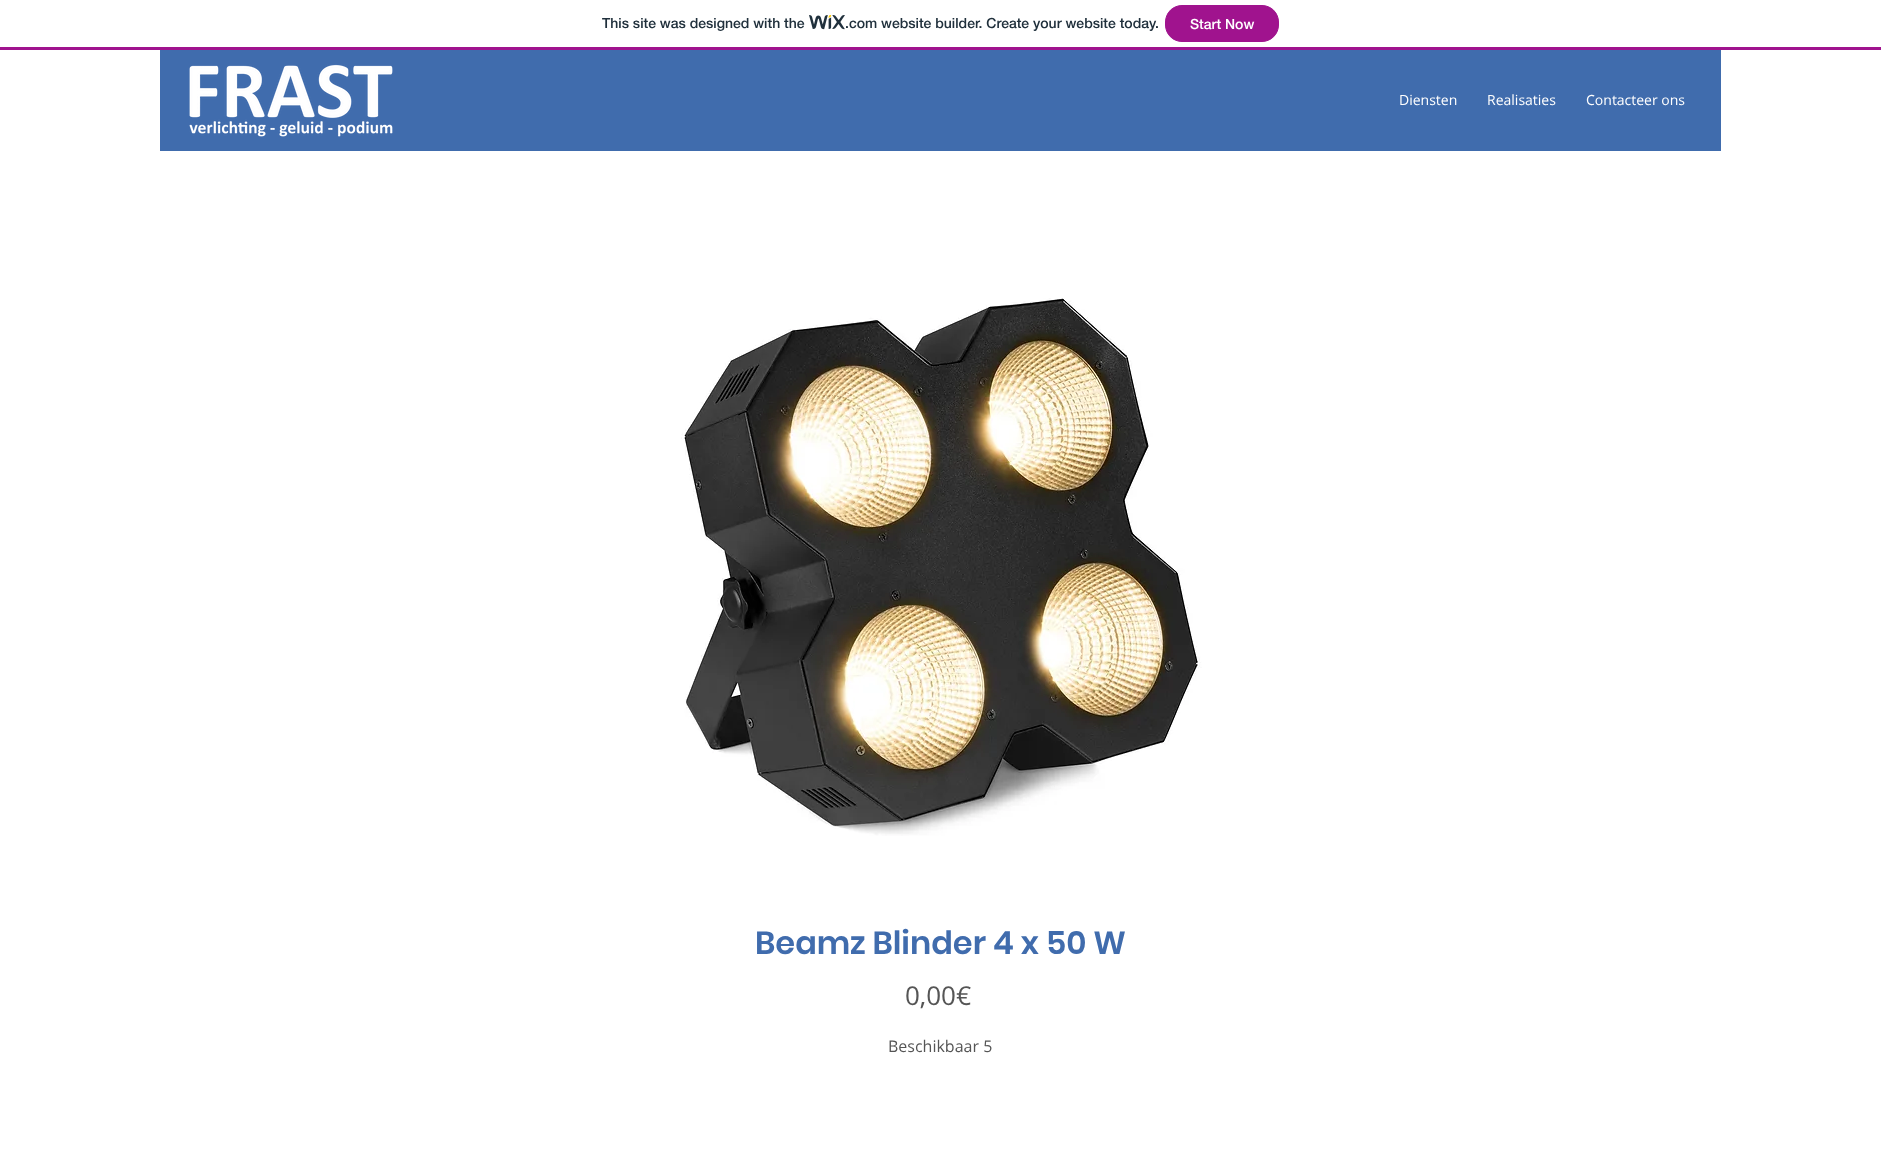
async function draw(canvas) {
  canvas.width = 1881
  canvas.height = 1149
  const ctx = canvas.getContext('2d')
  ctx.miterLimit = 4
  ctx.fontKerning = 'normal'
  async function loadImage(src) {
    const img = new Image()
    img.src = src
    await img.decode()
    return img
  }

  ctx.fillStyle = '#fff'
  ctx.fillRect(0, 0, 1881, 1149)
  ctx.fillStyle = '#a0138e'
  ctx.fillRect(0, 47, 1881, 3)
  ctx.font = '500 14px "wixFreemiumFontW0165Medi"'
  ctx.fillStyle = '#20303c'
  ctx.fillText('This site was designed with the', 602, 28)
  ctx.drawImage(await loadImage('image0.png'), 809, 15, 36, 15)
  ctx.fillText('.com website builder. Create your website today.', 845, 28)
  ctx.fillStyle = '#a0138e'
  ctx.beginPath()
  ctx.roundRect(1165.5, 5.5, 113, 36, 16.5)
  ctx.fill()
  ctx.strokeStyle = '#a0138e'
  ctx.stroke()
  ctx.fillStyle = '#fff'
  ctx.fillText('Start Now', 1190, 29)
  ctx.fillStyle = '#406cad'
  ctx.fillRect(160, 50, 1561, 101)
  ctx.drawImage(await loadImage('image1.png'), 189, 64, 204, 73)
  ctx.font = '14px Open Sans'
  ctx.fillStyle = '#fff'
  ctx.fillText('Diensten', 1399, 105)
  ctx.fillText('Realisaties', 1487, 105)
  ctx.fillText('Contacteer ons', 1586, 105)
  ctx.drawImage(await loadImage('image2.png'), 681, 298, 521, 538)
  ctx.font = '600 32px Poppins'
  ctx.fillStyle = '#406cad'
  ctx.fillText('Beamz Blinder 4 x 50 W', 755, 954)
  ctx.font = '26px Open Sans'
  ctx.fillStyle = '#555'
  ctx.fillText('0,00€', 905, 1005)
  ctx.font = '16px Open Sans'
  ctx.fillText('Beschikbaar 5', 888, 1052)
}

draw(document.querySelector('canvas'))
